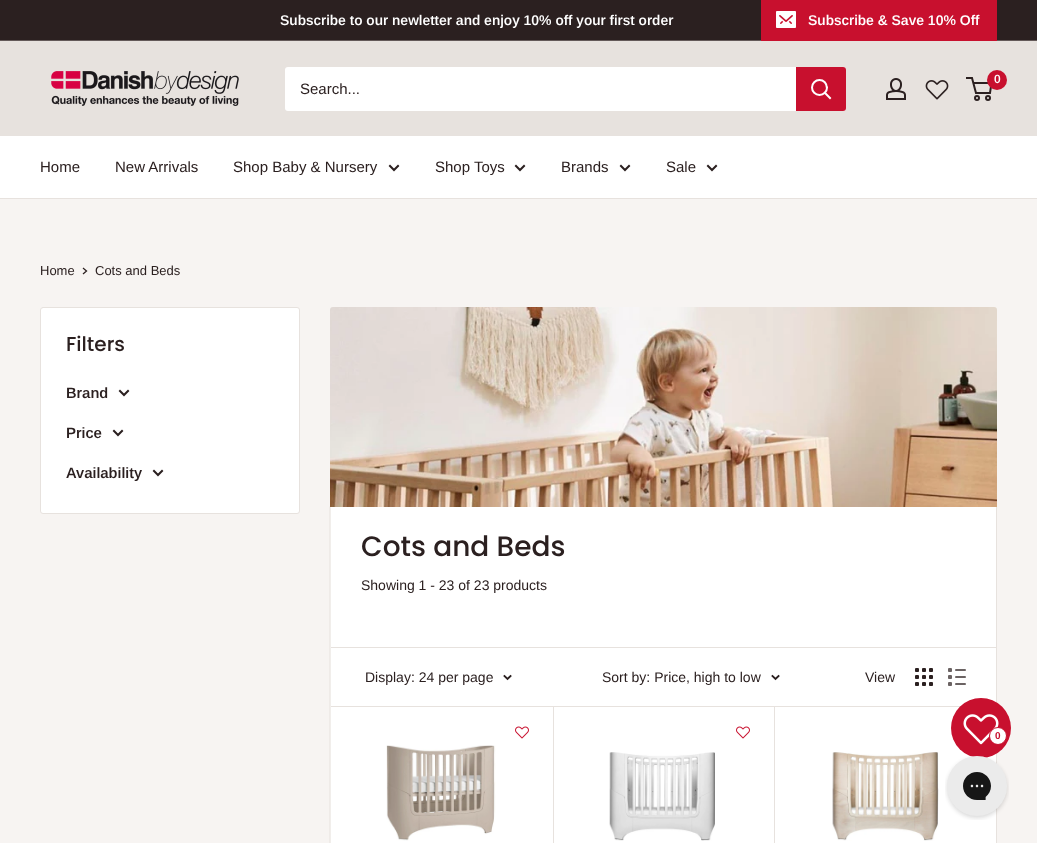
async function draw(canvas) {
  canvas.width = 1037
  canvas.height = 843
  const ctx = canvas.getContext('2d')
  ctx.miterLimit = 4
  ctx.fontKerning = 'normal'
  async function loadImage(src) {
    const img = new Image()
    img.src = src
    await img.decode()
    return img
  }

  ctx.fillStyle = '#f7f4f2'
  ctx.fillRect(0, 0, 1037, 843)
  ctx.fillStyle = '#2b2020'
  ctx.fillRect(0, 0, 1037, 40)
  ctx.fillStyle = '#645a59'
  ctx.fillRect(0, 40, 1037, 1)
  ctx.font = '600 14px Arimo'
  ctx.fillStyle = '#fff'
  ctx.fillText('Subscribe to our newletter and enjoy 10% off your first order', 280, 25)
  ctx.fillStyle = '#c8102e'
  ctx.fillRect(761, 0, 236, 41)
  ctx.drawImage(await loadImage('image0.png'), 776, 11, 20, 17)
  ctx.fillStyle = '#fff'
  ctx.fillText('Subscribe & Save 10% Off', 808, 25)
  ctx.fillStyle = '#e7e2de'
  ctx.fillRect(0, 41, 1037, 95)
  ctx.drawImage(await loadImage('image1.png'), 51, 71, 188, 35)
  ctx.drawImage(await loadImage('image2.png'), 886, 78, 20, 22)
  ctx.drawImage(await loadImage('image3.png'), 925, 80, 24, 20)
  ctx.beginPath()
  ctx.arc(977, 98, 2, 0, 2 * Math.PI)
  ctx.strokeStyle = '#2b2020'
  ctx.lineWidth = 2
  ctx.stroke()
  ctx.beginPath()
  ctx.arc(988, 98, 2, 0, 2 * Math.PI)
  ctx.stroke()
  ctx.beginPath()
  ctx.moveTo(973.5, 83)
  ctx.lineTo(991.5, 83)
  ctx.lineTo(990, 93)
  ctx.lineTo(976, 93)
  ctx.lineTo(972, 78)
  ctx.lineTo(966, 78)
  ctx.stroke()
  ctx.fillStyle = '#c8102e'
  ctx.beginPath()
  ctx.arc(997, 80, 10, 0, 2 * Math.PI)
  ctx.fill()
  ctx.font = '600 12px Arimo'
  ctx.fillStyle = '#fff'
  ctx.fillText('0', 994, 83)
  ctx.beginPath()
  ctx.roundRect(285, 67, 561, 44, 3)
  ctx.fill()
  ctx.font = '15px Arimo'
  ctx.fillStyle = '#2b2020'
  ctx.fillText('Search...', 300, 94)
  ctx.fillStyle = '#c8102e'
  ctx.beginPath()
  ctx.roundRect(796, 67, 50, 44, [0, 3, 3, 0])
  ctx.fill()
  ctx.beginPath()
  ctx.moveTo(830, 98)
  ctx.lineTo(825, 93)
  ctx.strokeStyle = '#fff'
  ctx.lineCap = 'square'
  ctx.stroke()
  ctx.beginPath()
  ctx.arc(819.5, 87.5, 7.5, 0, 2 * Math.PI)
  ctx.stroke()
  ctx.fillStyle = '#fff'
  ctx.fillRect(0, 136, 1037, 62)
  ctx.fillStyle = '#e7e2de'
  ctx.fillRect(0, 198, 1037, 1)
  ctx.fillStyle = '#2b2020'
  ctx.fillText('Home', 40, 172)
  ctx.fillText('New Arrivals', 115, 172)
  ctx.fillText('Shop Baby & Nursery', 233, 172)
  ctx.beginPath()
  ctx.moveTo(398, 166)
  ctx.lineTo(394, 170)
  ctx.lineTo(390, 166)
  ctx.strokeStyle = '#2b2020'
  ctx.stroke()
  ctx.fillText('Shop Toys', 435, 172)
  ctx.beginPath()
  ctx.moveTo(524, 166)
  ctx.lineTo(520, 170)
  ctx.lineTo(516, 166)
  ctx.stroke()
  ctx.fillText('Brands', 561, 172)
  ctx.beginPath()
  ctx.moveTo(629, 166)
  ctx.lineTo(625, 170)
  ctx.lineTo(621, 166)
  ctx.stroke()
  ctx.fillText('Sale', 666, 172)
  ctx.beginPath()
  ctx.moveTo(716, 166)
  ctx.lineTo(712, 170)
  ctx.lineTo(708, 166)
  ctx.stroke()
  ctx.font = '13px Arimo'
  ctx.fillText('Home', 40, 275)
  ctx.beginPath()
  ctx.moveTo(83.5, 268.5)
  ctx.lineTo(86.5, 271)
  ctx.lineTo(83.5, 273.5)
  ctx.lineWidth = 1.3
  ctx.stroke()
  ctx.fillText('Cots and Beds', 95, 275)
  ctx.fillStyle = '#fff'
  ctx.beginPath()
  ctx.roundRect(40.5, 307.5, 259, 206, 2.5)
  ctx.fill()
  ctx.strokeStyle = '#e7e2de'
  ctx.lineWidth = 1
  ctx.stroke()
  ctx.font = '500 20px Poppins'
  ctx.fillStyle = '#2b2020'
  ctx.fillText('Filters', 66, 351)
  ctx.font = '600 15px Arimo'
  ctx.fillText('Brand', 66, 398)
  ctx.beginPath()
  ctx.moveTo(128, 391)
  ctx.lineTo(124, 395)
  ctx.lineTo(120, 391)
  ctx.moveTo(122, 431)
  ctx.lineTo(118, 435)
  ctx.lineTo(114, 431)
  ctx.strokeStyle = '#2b2020'
  ctx.lineWidth = 2
  ctx.stroke()
  ctx.fillText('Price', 66, 438)
  ctx.fillText('Availability', 66, 478)
  ctx.beginPath()
  ctx.moveTo(162, 471)
  ctx.lineTo(158, 475)
  ctx.lineTo(154, 471)
  ctx.stroke()
  ctx.fillStyle = '#fff'
  ctx.beginPath()
  ctx.rect(330.5, 506.5, 666, 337)
  ctx.fill()
  ctx.strokeStyle = '#e7e2de'
  ctx.lineWidth = 1
  ctx.stroke()
  ctx.drawImage(await loadImage('image4.png'), 330, 307, 667, 200)
  ctx.font = '500 28px Poppins'
  ctx.fillStyle = '#2b2020'
  ctx.fillText('Cots and Beds', 361, 556)
  ctx.font = '14px Arimo'
  ctx.fillText('Showing 1 - 23 of 23 products', 361, 590)
  ctx.fillStyle = '#e7e2de'
  ctx.fillRect(331, 647, 665, 1)
  ctx.fillRect(553, 706, 1, 137)
  ctx.fillRect(774, 706, 1, 137)
  ctx.fillRect(331, 706, 630, 1)
  ctx.fillStyle = '#2b2020'
  ctx.fillText('Display: 24 per page', 365, 682)
  ctx.beginPath()
  ctx.moveTo(510.5, 676)
  ctx.lineTo(507.5, 679)
  ctx.lineTo(504.5, 676)
  ctx.strokeStyle = '#2b2020'
  ctx.lineWidth = 1.9
  ctx.stroke()
  ctx.fillText('Sort by: Price, high to low', 602, 682)
  ctx.beginPath()
  ctx.moveTo(778.5, 676)
  ctx.lineTo(775.5, 679)
  ctx.lineTo(772.5, 676)
  ctx.stroke()
  ctx.fillText('View', 865, 682)
  ctx.drawImage(await loadImage('image5.png'), 915, 668, 18, 18)
  ctx.drawImage(await loadImage('image6.png'), 948, 668, 18, 18)
  ctx.drawImage(await loadImage('image7.png'), 515, 726, 14, 13)
  ctx.drawImage(await loadImage('image8.png'), 386, 745, 110, 96)
  ctx.drawImage(await loadImage('image7.png'), 736, 726, 14, 13)
  ctx.drawImage(await loadImage('image9.png'), 609, 752, 106, 89)
  ctx.drawImage(await loadImage('image10.png'), 832, 752, 107, 89)
  ctx.fillStyle = '#c8102e'
  ctx.beginPath()
  ctx.arc(981, 728, 30, 0, 2 * Math.PI)
  ctx.fill()
  ctx.drawImage(await loadImage('image11.png'), 963, 714, 36, 31)
  ctx.fillStyle = '#fff'
  ctx.beginPath()
  ctx.arc(998, 736, 8.5, 0, 2 * Math.PI)
  ctx.fill()
  ctx.strokeStyle = '#c8102e'
  ctx.lineWidth = 1
  ctx.stroke()
  ctx.font = 'bold 10px Liberation Sans'
  ctx.fillStyle = '#c8102e'
  ctx.fillText('0', 995, 739)
  ctx.drawImage(await loadImage('image12.png'), 945, 756, 64, 64)
}

draw(document.querySelector('canvas'))
